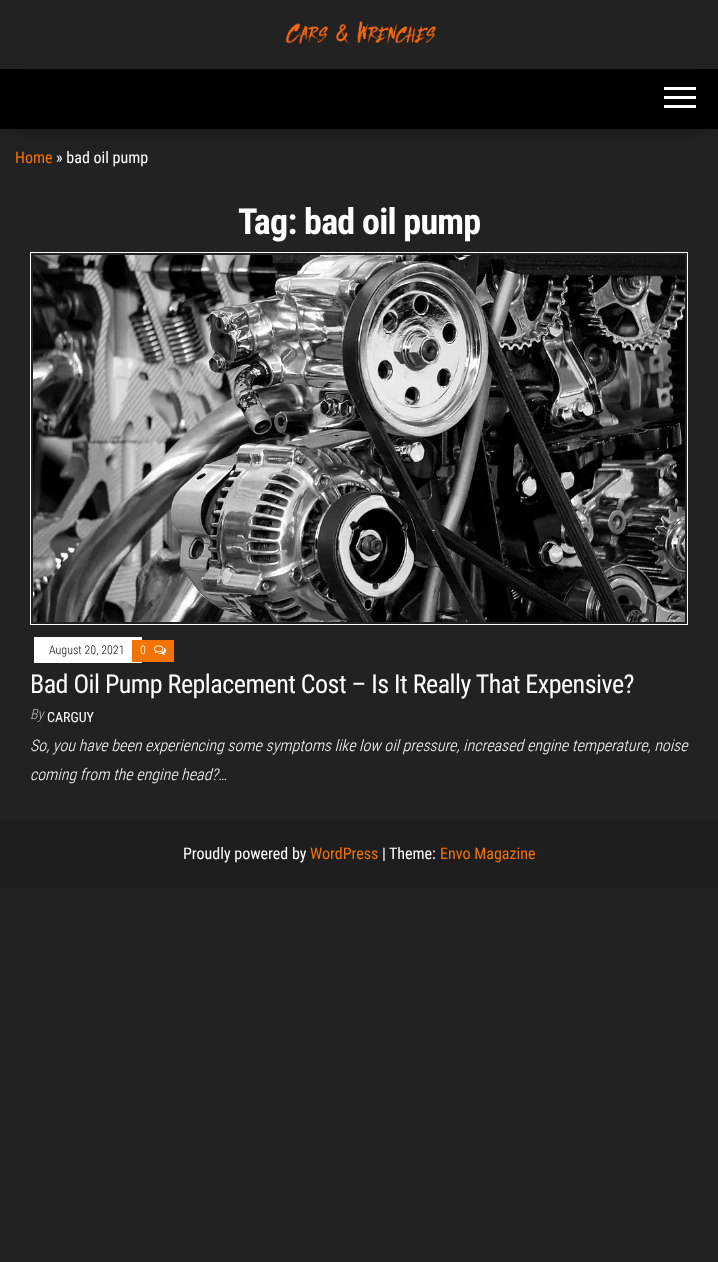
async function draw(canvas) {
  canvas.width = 718
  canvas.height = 1262
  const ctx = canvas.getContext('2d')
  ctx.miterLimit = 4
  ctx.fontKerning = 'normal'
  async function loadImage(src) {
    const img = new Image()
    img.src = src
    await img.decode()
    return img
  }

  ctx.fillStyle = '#222'
  ctx.fillRect(0, 0, 718, 1262)
  ctx.drawImage(await loadImage('image0.png'), 285, 21, 151, 24)
  ctx.fillStyle = '#0000006b'
  ctx.filter = 'blur(10px)'
  ctx.beginPath()
  ctx.rect(12, 91, 694, 36)
  ctx.fill()
  ctx.filter = 'none'
  ctx.fillStyle = '#000'
  ctx.fillRect(0, 69, 718, 60)
  ctx.fillStyle = '#fff'
  ctx.fillRect(664, 87, 32, 3)
  ctx.fillRect(664, 96, 32, 3)
  ctx.fillRect(664, 105, 32, 3)
  ctx.font = '16px Roboto Condensed'
  ctx.fillStyle = '#f27300'
  ctx.fillText('Home', 15, 163)
  ctx.fillStyle = '#fff'
  ctx.fillText('» bad oil pump', 56, 163)
  ctx.letterSpacing = '-0.75px'
  ctx.font = 'bold 36px Roboto Condensed'
  ctx.fillText('Tag: bad oil pump', 238, 234)
  ctx.strokeStyle = '#fff'
  ctx.strokeRect(30.5, 252.5, 657, 372)
  ctx.drawImage(await loadImage('image1.png'), 33, 255, 652, 367)
  ctx.fillRect(34, 637, 108, 26)
  ctx.letterSpacing = '0px'
  ctx.font = '300 12px Roboto Condensed'
  ctx.fillStyle = '#000'
  ctx.fillText('August 20, 2021', 49, 654)
  ctx.fillStyle = '#f27300'
  ctx.fillRect(132, 640, 42, 22)
  ctx.fillStyle = '#fff'
  ctx.fillText('0', 140, 654)
  ctx.drawImage(await loadImage('image2.png'), 154, 645, 12, 10)
  ctx.letterSpacing = '-0.52px'
  ctx.font = '26px Roboto Condensed'
  ctx.fillText('Bad Oil Pump Replacement Cost – Is It Really That Expensive?', 30, 693)
  ctx.letterSpacing = '0px'
  ctx.font = 'italic 300 14px Roboto Condensed'
  ctx.fillStyle = '#bdbdbd'
  ctx.fillText('By', 30, 719)
  ctx.font = '14px Roboto Condensed'
  ctx.fillStyle = '#fff'
  ctx.fillText('CARGUY', 47, 722)
  ctx.font = 'italic 300 16px Roboto Condensed'
  ctx.fillText('So, you have been experiencing some symptoms like low oil pressure, increased engine temperature, noise', 30, 751)
  ctx.fillText('coming from the engine head?…', 30, 780)
  ctx.fillStyle = '#1e1e1e'
  ctx.fillRect(0, 820, 718, 68)
  ctx.font = '16px Roboto Condensed'
  ctx.fillStyle = '#fff'
  ctx.fillText('Proudly powered by', 183, 859)
  ctx.fillStyle = '#f27300'
  ctx.fillText('WordPress', 310, 859)
  ctx.fillStyle = '#fff'
  ctx.fillText('|', 382, 859)
  ctx.fillText('Theme:', 389, 859)
  ctx.fillStyle = '#f27300'
  ctx.fillText('Envo Magazine', 440, 859)
}

draw(document.querySelector('canvas'))
